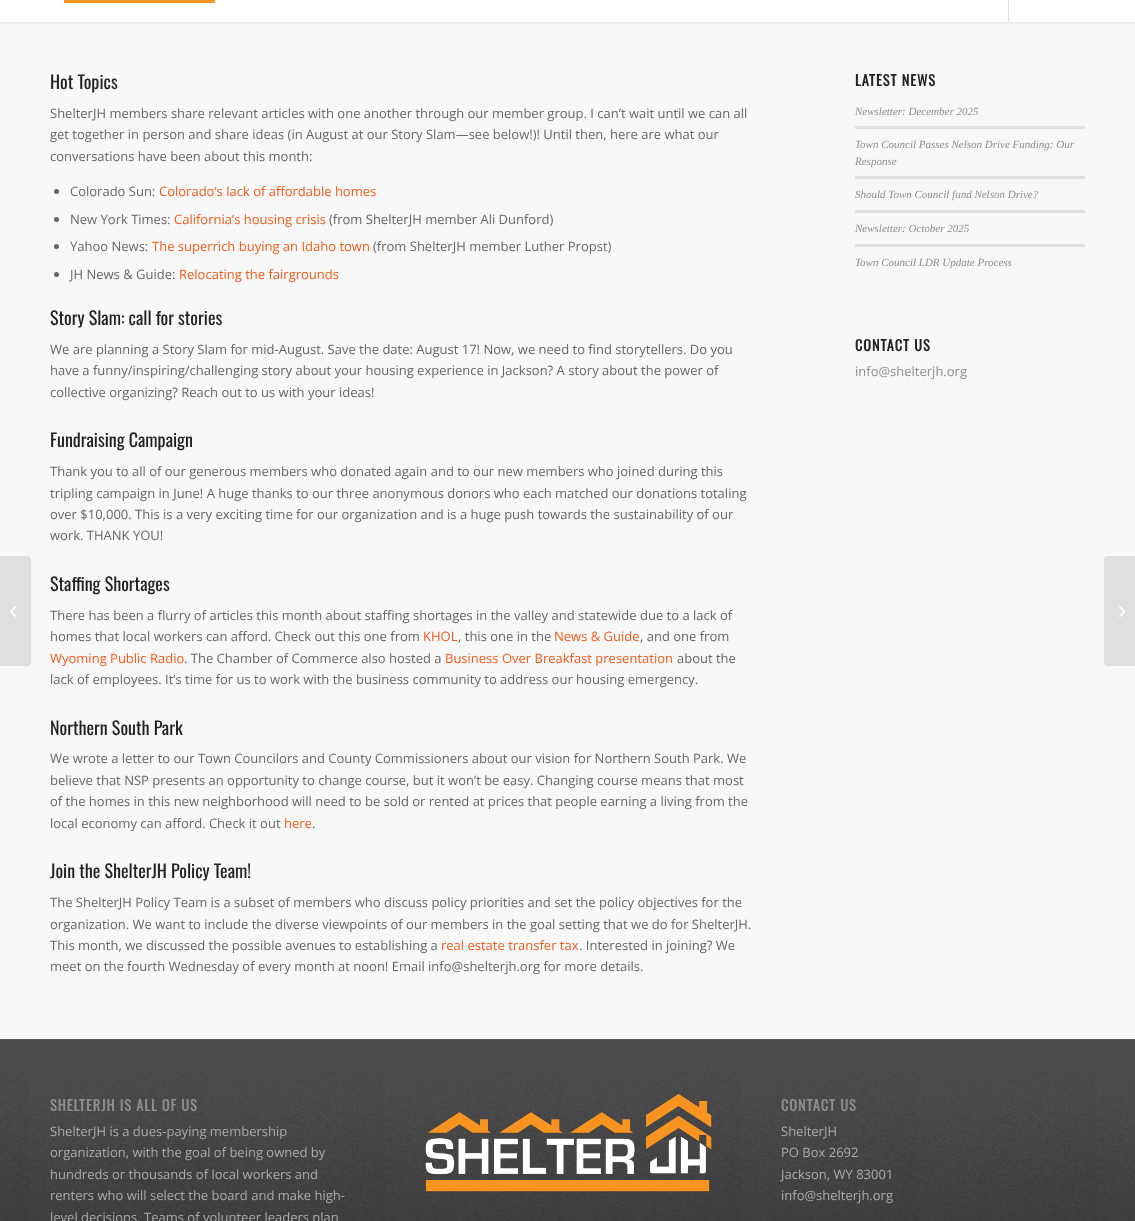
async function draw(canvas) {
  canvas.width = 1135
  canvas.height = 1221
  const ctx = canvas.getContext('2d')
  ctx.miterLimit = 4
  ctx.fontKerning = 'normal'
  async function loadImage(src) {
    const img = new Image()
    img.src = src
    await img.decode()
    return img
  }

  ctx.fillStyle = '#f8f8f8'
  ctx.fillRect(0, 0, 1135, 1221)
  ctx.fillStyle = '#0000001a'
  ctx.filter = 'blur(1px)'
  ctx.beginPath()
  ctx.rect(-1, -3, 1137, 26)
  ctx.fill()
  ctx.filter = 'none'
  ctx.fillStyle = '#fff'
  ctx.fillRect(0, 0, 1135, 22)
  ctx.fillStyle = '#f7931e'
  ctx.fillRect(64, 0, 151, 3)
  ctx.fillStyle = '#e1e1e1'
  ctx.fillRect(1008, 0, 1, 22)
  ctx.fillStyle = '#dfdfdf'
  ctx.beginPath()
  ctx.roundRect(0, 556, 31, 110, [0, 4, 4, 0])
  ctx.fill()
  ctx.drawImage(await loadImage('image0.png'), 10, 606, 7, 11)
  ctx.font = '18px Oswald'
  ctx.fillStyle = '#222'
  ctx.fillText('Hot Topics', 50, 89)
  ctx.font = '13px Open Sans'
  ctx.fillStyle = '#666'
  ctx.fillText('ShelterJH members share relevant articles with one another through our member group. I can’t wait until we can all', 50, 118)
  ctx.fillText('get together in person and share ideas (in August at our Story Slam—see below!)! Until then, here are what our', 50, 139)
  ctx.fillText('conversations have been about this month:', 50, 161)
  ctx.beginPath()
  ctx.arc(56.5, 191.5, 2.5, 0, 2 * Math.PI)
  ctx.fill()
  ctx.fillText('Colorado Sun:', 70, 196)
  ctx.fillStyle = '#f05a1a'
  ctx.fillText('Colorado’s lack of affordable homes', 159, 196)
  ctx.fillStyle = '#666'
  ctx.beginPath()
  ctx.arc(56.5, 219.5, 2.5, 0, 2 * Math.PI)
  ctx.fill()
  ctx.fillText('New York Times:', 70, 224)
  ctx.fillStyle = '#f05a1a'
  ctx.fillText('California’s housing crisis', 174, 224)
  ctx.fillStyle = '#666'
  ctx.fillText('(from ShelterJH member Ali Dunford)', 329, 224)
  ctx.beginPath()
  ctx.arc(56.5, 246.5, 2.5, 0, 2 * Math.PI)
  ctx.fill()
  ctx.fillText('Yahoo News:', 70, 251)
  ctx.fillStyle = '#f05a1a'
  ctx.fillText('The superrich buying an Idaho town', 152, 251)
  ctx.fillStyle = '#666'
  ctx.fillText('(from ShelterJH member Luther Propst)', 373, 251)
  ctx.beginPath()
  ctx.arc(56.5, 274.5, 2.5, 0, 2 * Math.PI)
  ctx.fill()
  ctx.fillText('JH News & Guide:', 70, 279)
  ctx.fillStyle = '#f05a1a'
  ctx.fillText('Relocating the fairgrounds', 179, 279)
  ctx.font = '18px Oswald'
  ctx.fillStyle = '#222'
  ctx.fillText('Story Slam: call for stories', 50, 325)
  ctx.font = '13px Open Sans'
  ctx.fillStyle = '#666'
  ctx.fillText('We are planning a Story Slam for mid-August. Save the date: August 17! Now, we need to find storytellers. Do you', 50, 354)
  ctx.fillText('have a funny/inspiring/challenging story about your housing experience in Jackson? A story about the power of', 50, 375)
  ctx.fillText('collective organizing? Reach out to us with your ideas!', 50, 397)
  ctx.font = '18px Oswald'
  ctx.fillStyle = '#222'
  ctx.fillText('Fundraising Campaign', 50, 447)
  ctx.font = '13px Open Sans'
  ctx.fillStyle = '#666'
  ctx.fillText('Thank you to all of our generous members who donated again and to our new members who joined during this', 50, 476)
  ctx.fillText('tripling campaign in June! A huge thanks to our three anonymous donors who each matched our donations totaling', 50, 498)
  ctx.fillText('over $10,000. This is a very exciting time for our organization and is a huge push towards the sustainability of our', 50, 519)
  ctx.fillText('work. THANK YOU!', 50, 540)
  ctx.font = '18px Oswald'
  ctx.fillStyle = '#222'
  ctx.fillText('Staffing Shortages', 50, 591)
  ctx.font = '13px Open Sans'
  ctx.fillStyle = '#666'
  ctx.fillText('There has been a flurry of articles this month about staffing shortages in the valley and statewide due to a lack of', 50, 620)
  ctx.fillText('homes that local workers can afford. Check out this one from', 50, 641)
  ctx.fillStyle = '#f05a1a'
  ctx.fillText('KHOL', 423, 641)
  ctx.fillStyle = '#666'
  ctx.fillText(', this one in the', 458, 641)
  ctx.fillStyle = '#f05a1a'
  ctx.fillText('News & Guide', 554, 641)
  ctx.fillStyle = '#666'
  ctx.fillText(', and one from', 640, 641)
  ctx.fillStyle = '#f05a1a'
  ctx.fillText('Wyoming Public Radio', 50, 663)
  ctx.fillStyle = '#666'
  ctx.fillText('. The Chamber of Commerce also hosted a', 184, 663)
  ctx.fillStyle = '#f05a1a'
  ctx.fillText('Business Over Breakfast presentation', 445, 663)
  ctx.fillStyle = '#666'
  ctx.fillText('about the', 677, 663)
  ctx.fillText('lack of employees. It’s time for us to work with the business community to address our housing emergency.', 50, 684)
  ctx.font = '18px Oswald'
  ctx.fillStyle = '#222'
  ctx.fillText('Northern South Park', 50, 735)
  ctx.font = '13px Open Sans'
  ctx.fillStyle = '#666'
  ctx.fillText('We wrote a letter to our Town Councilors and County Commissioners about our vision for Northern South Park. We', 50, 763)
  ctx.fillText('believe that NSP presents an opportunity to change course, but it won’t be easy. Changing course means that most', 50, 785)
  ctx.fillText('of the homes in this new neighborhood will need to be sold or rented at prices that people earning a living from the', 50, 806)
  ctx.fillText('local economy can afford. Check it out', 50, 828)
  ctx.fillStyle = '#f05a1a'
  ctx.fillText('here', 284, 828)
  ctx.fillStyle = '#666'
  ctx.fillText('.', 312, 828)
  ctx.font = '18px Oswald'
  ctx.fillStyle = '#222'
  ctx.fillText('Join the ShelterJH Policy Team!', 50, 878)
  ctx.font = '13px Open Sans'
  ctx.fillStyle = '#666'
  ctx.fillText('The ShelterJH Policy Team is a subset of members who discuss policy priorities and set the policy objectives for the', 50, 907)
  ctx.fillText('organization. We want to include the diverse viewpoints of our members in the goal setting that we do for ShelterJH.', 50, 929)
  ctx.fillText('This month, we discussed the possible avenues to establishing a', 50, 950)
  ctx.fillStyle = '#f05a1a'
  ctx.fillText('real estate transfer tax', 441, 950)
  ctx.fillStyle = '#666'
  ctx.fillText('. Interested in joining? We', 579, 950)
  ctx.fillText('meet on the fourth Wednesday of every month at noon! Email info@shelterjh.org for more details.', 50, 971)
  ctx.letterSpacing = '1px'
  ctx.font = 'bold 14.25px Oswald'
  ctx.fillStyle = '#222'
  ctx.fillText('LATEST NEWS', 855, 86)
  ctx.letterSpacing = '0px'
  ctx.font = 'italic 11px Liberation Serif'
  ctx.fillStyle = '#8d8d8d'
  ctx.fillText('Newsletter: December 2025', 855, 115)
  ctx.fillStyle = '#e1e1e1'
  ctx.fillRect(855, 126, 230, 3)
  ctx.fillStyle = '#8d8d8d'
  ctx.fillText('Town Council Passes Nelson Drive Funding: Our', 855, 148)
  ctx.fillText('Response', 855, 165)
  ctx.fillStyle = '#e1e1e1'
  ctx.fillRect(855, 176, 230, 3)
  ctx.fillStyle = '#8d8d8d'
  ctx.fillText('Should Town Council fund Nelson Drive?', 855, 198)
  ctx.fillStyle = '#e1e1e1'
  ctx.fillRect(855, 210, 230, 3)
  ctx.fillStyle = '#8d8d8d'
  ctx.fillText('Newsletter: October 2025', 855, 232)
  ctx.fillStyle = '#e1e1e1'
  ctx.fillRect(855, 244, 230, 3)
  ctx.fillStyle = '#8d8d8d'
  ctx.fillText('Town Council LDR Update Process', 855, 266)
  ctx.letterSpacing = '1px'
  ctx.font = 'bold 14.25px Oswald'
  ctx.fillStyle = '#222'
  ctx.fillText('CONTACT US', 855, 351)
  ctx.letterSpacing = '0px'
  ctx.font = '13px Open Sans'
  ctx.fillStyle = '#8d8d8d'
  ctx.fillText('info@shelterjh.org', 855, 376)
  ctx.fillStyle = '#333'
  ctx.fillRect(0, 1040, 1135, 181)
  ctx.drawImage(await loadImage('image1.png'), 0, 1040, 1135, 181)
  ctx.fillStyle = '#555'
  ctx.fillRect(0, 1039, 1135, 1)
  ctx.letterSpacing = '1px'
  ctx.font = 'bold 14.25px Oswald'
  ctx.fillStyle = '#8d8d8d'
  ctx.fillText('SHELTERJH IS ALL OF US', 50, 1111)
  ctx.letterSpacing = '0px'
  ctx.font = '13px Open Sans'
  ctx.fillStyle = '#aaa'
  ctx.fillText('ShelterJH is a dues-paying membership', 50, 1136)
  ctx.fillText('organization, with the goal of being owned by', 50, 1157)
  ctx.fillText('hundreds or thousands of local workers and', 50, 1179)
  ctx.fillText('renters who will select the board and make high-', 50, 1200)
  ctx.fillText('level decisions. Teams of volunteer leaders plan', 50, 1222)
  ctx.drawImage(await loadImage('image2.png'), 425, 1093, 287, 99)
  ctx.letterSpacing = '1px'
  ctx.font = 'bold 14.25px Oswald'
  ctx.fillStyle = '#8d8d8d'
  ctx.fillText('CONTACT US', 781, 1111)
  ctx.letterSpacing = '0px'
  ctx.font = '13px Open Sans'
  ctx.fillStyle = '#aaa'
  ctx.fillText('ShelterJH', 781, 1136)
  ctx.fillText('PO Box 2692', 781, 1157)
  ctx.fillText('Jackson, WY 83001', 781, 1179)
  ctx.fillText('info@shelterjh.org', 781, 1200)
  ctx.fillStyle = '#dfdfdf'
  ctx.beginPath()
  ctx.roundRect(1104, 556, 31, 110, [4, 0, 0, 4])
  ctx.fill()
  ctx.drawImage(await loadImage('image3.png'), 1119, 606, 7, 11)
}

draw(document.querySelector('canvas'))
